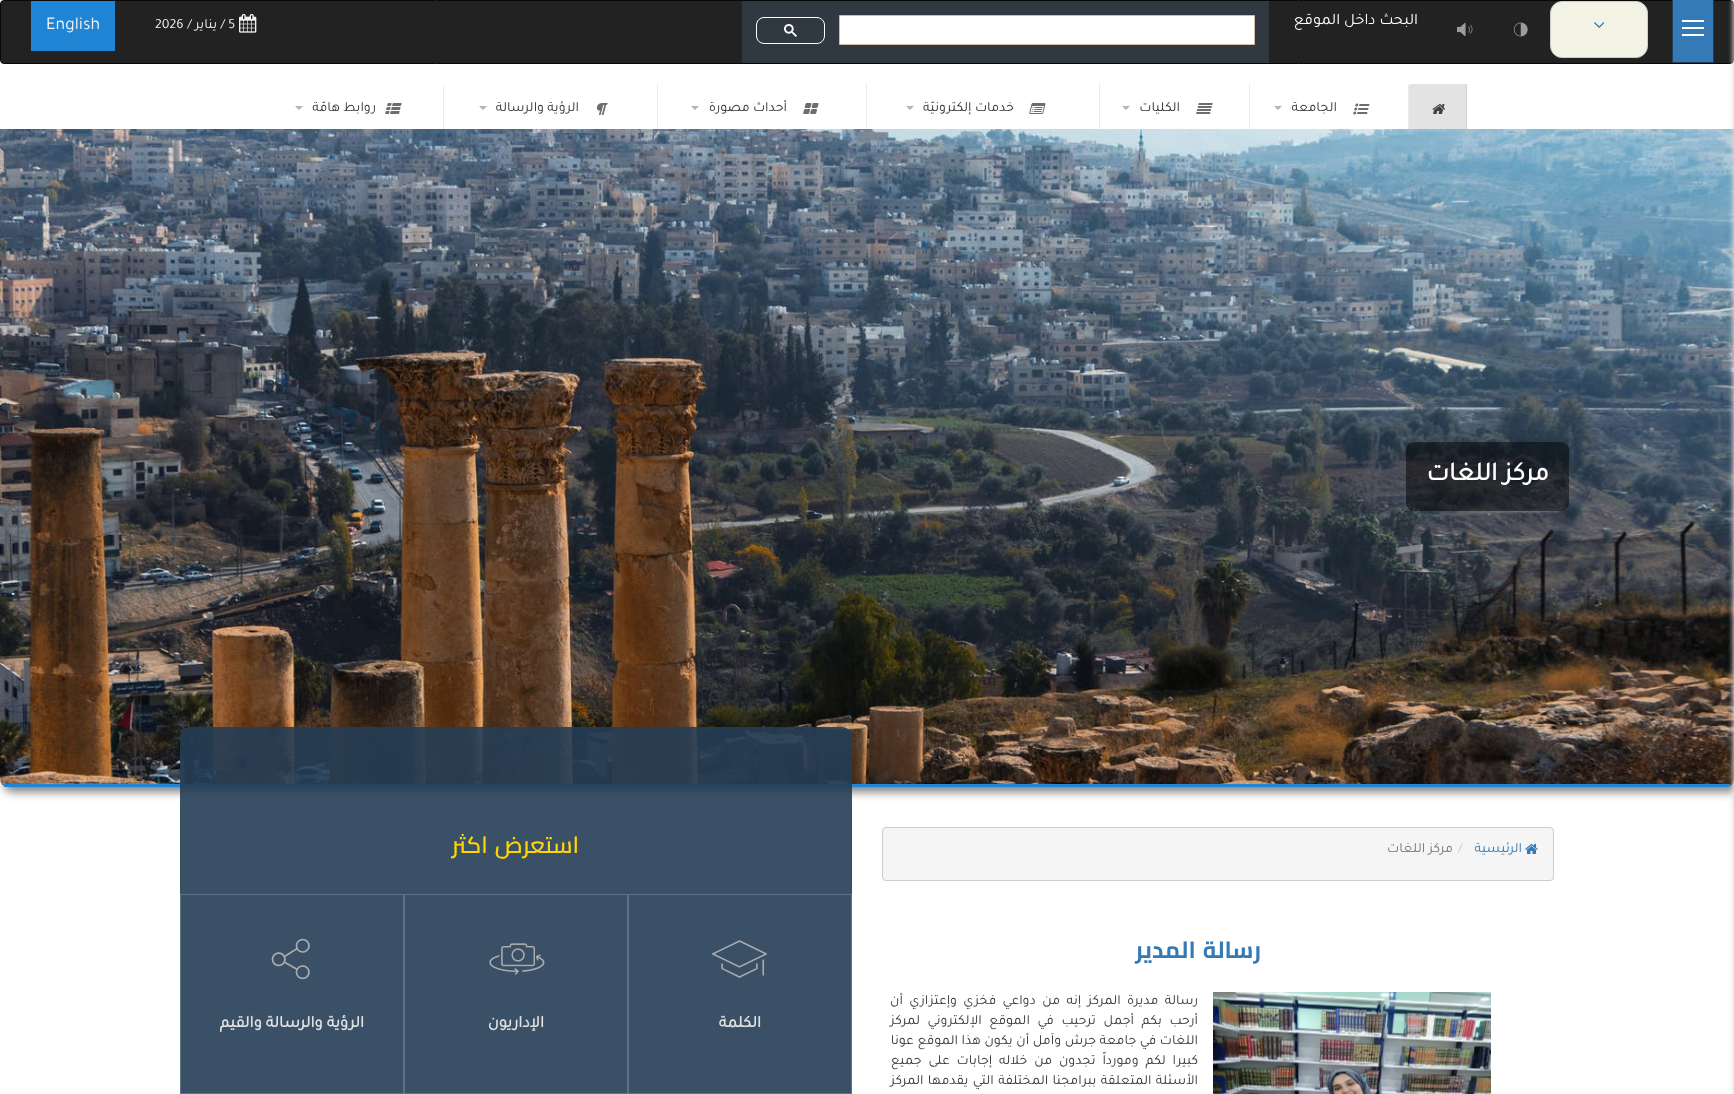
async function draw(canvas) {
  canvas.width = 1734
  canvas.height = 1094
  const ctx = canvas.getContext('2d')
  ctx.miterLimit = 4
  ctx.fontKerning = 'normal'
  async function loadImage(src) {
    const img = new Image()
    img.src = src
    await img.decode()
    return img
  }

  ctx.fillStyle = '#fff'
  ctx.fillRect(0, 0, 1734, 1094)
  ctx.fillStyle = '#222'
  ctx.beginPath()
  ctx.roundRect(0.5, 0.5, 1733, 63, 3.5)
  ctx.fill()
  ctx.strokeStyle = '#080808'
  ctx.stroke()
  ctx.fillStyle = '#e3e3e3'
  ctx.beginPath()
  ctx.roundRect(1409, 84, 58, 50, [3, 0, 0, 0])
  ctx.fill()
  ctx.fillStyle = '#d1d1d1'
  ctx.fillRect(1466, 84, 1, 50)
  ctx.fillStyle = '#ebebeb'
  ctx.fillRect(1408, 84, 1, 50)
  ctx.fillRect(1249, 84, 1, 50)
  ctx.fillRect(1099, 84, 1, 50)
  ctx.fillRect(866, 84, 1, 50)
  ctx.fillRect(657, 84, 1, 50)
  ctx.fillRect(443, 86, 1, 48)
  ctx.drawImage(await loadImage('image5.png'), 1432, 104, 13, 10)
  ctx.drawImage(await loadImage('image6.png'), 1353, 103, 17, 12)
  ctx.fillStyle = '#b3b3b3'
  ctx.beginPath()
  ctx.moveTo(1274, 106)
  ctx.lineTo(1282, 106)
  ctx.lineTo(1278, 110)
  ctx.closePath()
  ctx.fill()
  ctx.drawImage(await loadImage('image7.png'), 1196, 103, 17, 11)
  ctx.beginPath()
  ctx.moveTo(1122, 106)
  ctx.lineTo(1130, 106)
  ctx.lineTo(1126, 110)
  ctx.closePath()
  ctx.fill()
  ctx.drawImage(await loadImage('image8.png'), 1029, 103, 17, 11)
  ctx.beginPath()
  ctx.moveTo(906, 106)
  ctx.lineTo(914, 106)
  ctx.lineTo(910, 110)
  ctx.closePath()
  ctx.fill()
  ctx.drawImage(await loadImage('image9.png'), 803, 103, 16, 11)
  ctx.beginPath()
  ctx.moveTo(691, 106)
  ctx.lineTo(699, 106)
  ctx.lineTo(695, 110)
  ctx.closePath()
  ctx.fill()
  ctx.drawImage(await loadImage('image10.png'), 596, 103, 12, 12)
  ctx.beginPath()
  ctx.moveTo(479, 106)
  ctx.lineTo(487, 106)
  ctx.lineTo(483, 110)
  ctx.closePath()
  ctx.fill()
  ctx.drawImage(await loadImage('image11.png'), 385, 103, 17, 11)
  ctx.beginPath()
  ctx.moveTo(295, 106)
  ctx.lineTo(303, 106)
  ctx.lineTo(299, 110)
  ctx.closePath()
  ctx.fill()
  ctx.save()
  ctx.beginPath()
  ctx.rect(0, 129, 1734, 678)
  ctx.clip()
  ctx.fillStyle = '#808080'
  ctx.filter = 'blur(5px)'
  ctx.beginPath()
  ctx.roundRect(4, 114, 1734, 678, 8)
  ctx.fill()
  ctx.filter = 'none'
  ctx.restore()
  ctx.drawImage(await loadImage('image12.png'), 0, 129, 1734, 657)
  ctx.fillStyle = '#2185d5'
  ctx.fillRect(4, 784, 1726, 3)
  ctx.fillStyle = '#ddd'
  ctx.filter = 'blur(2.5px)'
  ctx.beginPath()
  ctx.rect(1733, -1, 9, 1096)
  ctx.fill()
  ctx.filter = 'none'
  ctx.fillStyle = '#337ab7'
  ctx.beginPath()
  ctx.rect(1672.5, -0.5, 41, 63)
  ctx.fill()
  ctx.strokeStyle = '#253d55'
  ctx.stroke()
  ctx.fillStyle = '#fff'
  ctx.fillRect(1682, 27, 22, 2)
  ctx.fillRect(1682, 20, 22, 2)
  ctx.fillRect(1682, 34, 22, 2)
  ctx.fillStyle = '#f3f3e5'
  ctx.beginPath()
  ctx.roundRect(1550.5, 1.5, 97, 56, 11.5)
  ctx.fill()
  ctx.strokeStyle = '#ccc'
  ctx.stroke()
  ctx.drawImage(await loadImage('image0.png'), 1594, 22, 11, 6)
  ctx.drawImage(await loadImage('image1.png'), 1513, 22, 15, 15)
  ctx.drawImage(await loadImage('image2.png'), 1457, 23, 16, 13)
  ctx.direction = 'rtl'
  ctx.font = '16px Tajawal'
  ctx.fillStyle = '#fff'
  ctx.fillText('البحث داخل الموقع', 1418, 24)
  ctx.fillStyle = '#303841'
  ctx.fillRect(742, 1, 527, 62)
  ctx.fillStyle = '#fff'
  ctx.beginPath()
  ctx.rect(839.5, 15.5, 415, 29)
  ctx.fill()
  ctx.strokeStyle = '#d3bca1'
  ctx.stroke()
  ctx.beginPath()
  ctx.roundRect(756.5, 17.5, 68, 26, 7.5)
  ctx.strokeStyle = '#fff'
  ctx.stroke()
  ctx.drawImage(await loadImage('image3.png'), 784, 24, 13, 13)
  ctx.drawImage(await loadImage('image4.png'), 239, 14, 18, 19)
  ctx.direction = 'ltr'
  ctx.font = '14px Tajawal'
  ctx.fillStyle = '#f3f3f3'
  ctx.fillText('5', 228, 28)
  ctx.direction = 'rtl'
  ctx.fillText('/ يناير /', 225, 28)
  ctx.direction = 'ltr'
  ctx.fillText('2026', 155, 28)
  ctx.fillStyle = '#2185d5'
  ctx.fillRect(31, 1, 84, 50)
  ctx.font = '18px Tajawal'
  ctx.fillStyle = '#f3f3f3'
  ctx.fillText('English', 46, 29)
  ctx.direction = 'rtl'
  ctx.font = '14px Tajawal'
  ctx.fillStyle = '#333'
  ctx.fillText('الجامعة', 1337, 111)
  ctx.fillText('الكليات', 1180, 111)
  ctx.fillText('خدمات إلكترونيّة', 1014, 111)
  ctx.fillText('أحداث مصورة', 787, 111)
  ctx.fillText('الرؤية والرسالة', 579, 111)
  ctx.fillText('روابط هامّة', 376, 111)
  ctx.fillStyle = '#02020280'
  ctx.beginPath()
  ctx.roundRect(1406, 442, 163, 69, 8)
  ctx.fill()
  ctx.font = 'bold 26px Tajawal'
  ctx.fillStyle = '#fff'
  ctx.fillText('مركز اللغات', 1549, 480)
  ctx.fillStyle = '#f5f5f5'
  ctx.beginPath()
  ctx.roundRect(882.5, 827.5, 671, 53, 3.5)
  ctx.fill()
  ctx.strokeStyle = '#ccc'
  ctx.stroke()
  ctx.drawImage(await loadImage('image13.png'), 1525, 844, 13, 10)
  ctx.font = '14px Tajawal'
  ctx.fillStyle = '#337ab7'
  ctx.fillText('الرئيسية', 1522, 852)
  ctx.direction = 'ltr'
  ctx.fillStyle = '#ccc'
  ctx.fillText('/', 1458, 852)
  ctx.direction = 'rtl'
  ctx.fillStyle = '#777'
  ctx.fillText('مركز اللغات', 1453, 852)
  ctx.wordSpacing = '2px'
  ctx.font = 'bold 23.25px Cairo'
  ctx.fillStyle = '#337ab7'
  ctx.fillText('رسالة المدير', 1261, 958)
  ctx.drawImage(await loadImage('image14.png'), 1213, 992, 278, 102)
  ctx.wordSpacing = '3px'
  ctx.font = '14px Tajawal'
  ctx.fillStyle = '#393838'
  ctx.fillText('رسالة مديرة المركز إنه من دواعي فخزي وإعتزازي أن', 1198, 1004)
  ctx.wordSpacing = '4.25px'
  ctx.fillText('أرحب بكم أجمل ترحيب في الموقع الإلكتروني لمركز', 1198, 1024)
  ctx.wordSpacing = '0.25px'
  ctx.fillText('اللغات في جامعة جرش وآمل أن يكون هذا الموقع عونا', 1198, 1044)
  ctx.wordSpacing = '3.5px'
  ctx.fillText('كبيرا لكم ومورداً تجدون من خلاله إجابات على جميع', 1198, 1064)
  ctx.wordSpacing = '1px'
  ctx.fillText('الأسئلة المتعلقة ببرامجنا المختلفة التي يقدمها المركز', 1198, 1084)
  ctx.fillStyle = '#253d55e6'
  ctx.beginPath()
  ctx.roundRect(180, 727, 672, 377, 10)
  ctx.fill()
  ctx.wordSpacing = '2px'
  ctx.font = '600 23.25px Cairo'
  ctx.fillStyle = '#ffd700'
  ctx.fillText('استعرض اكثر', 579, 853)
  ctx.strokeStyle = '#5b7289'
  ctx.strokeRect(628.5, 894.5, 223, 199)
  ctx.drawImage(await loadImage('image15.png'), 712, 940, 55, 38)
  ctx.wordSpacing = '0px'
  ctx.font = 'bold 16.5px Tajawal'
  ctx.fillStyle = '#e1e1e1'
  ctx.fillText('الكلمة', 761, 1027)
  ctx.strokeRect(404.5, 894.5, 223, 199)
  ctx.drawImage(await loadImage('image16.png'), 489, 943, 56, 32)
  ctx.fillText('الإداريون', 544, 1027)
  ctx.strokeRect(180.5, 894.5, 223, 199)
  ctx.drawImage(await loadImage('image17.png'), 271, 938, 39, 42)
  ctx.fillText('الرؤية والرسالة والقيم', 364, 1027)
}

draw(document.querySelector('canvas'))
